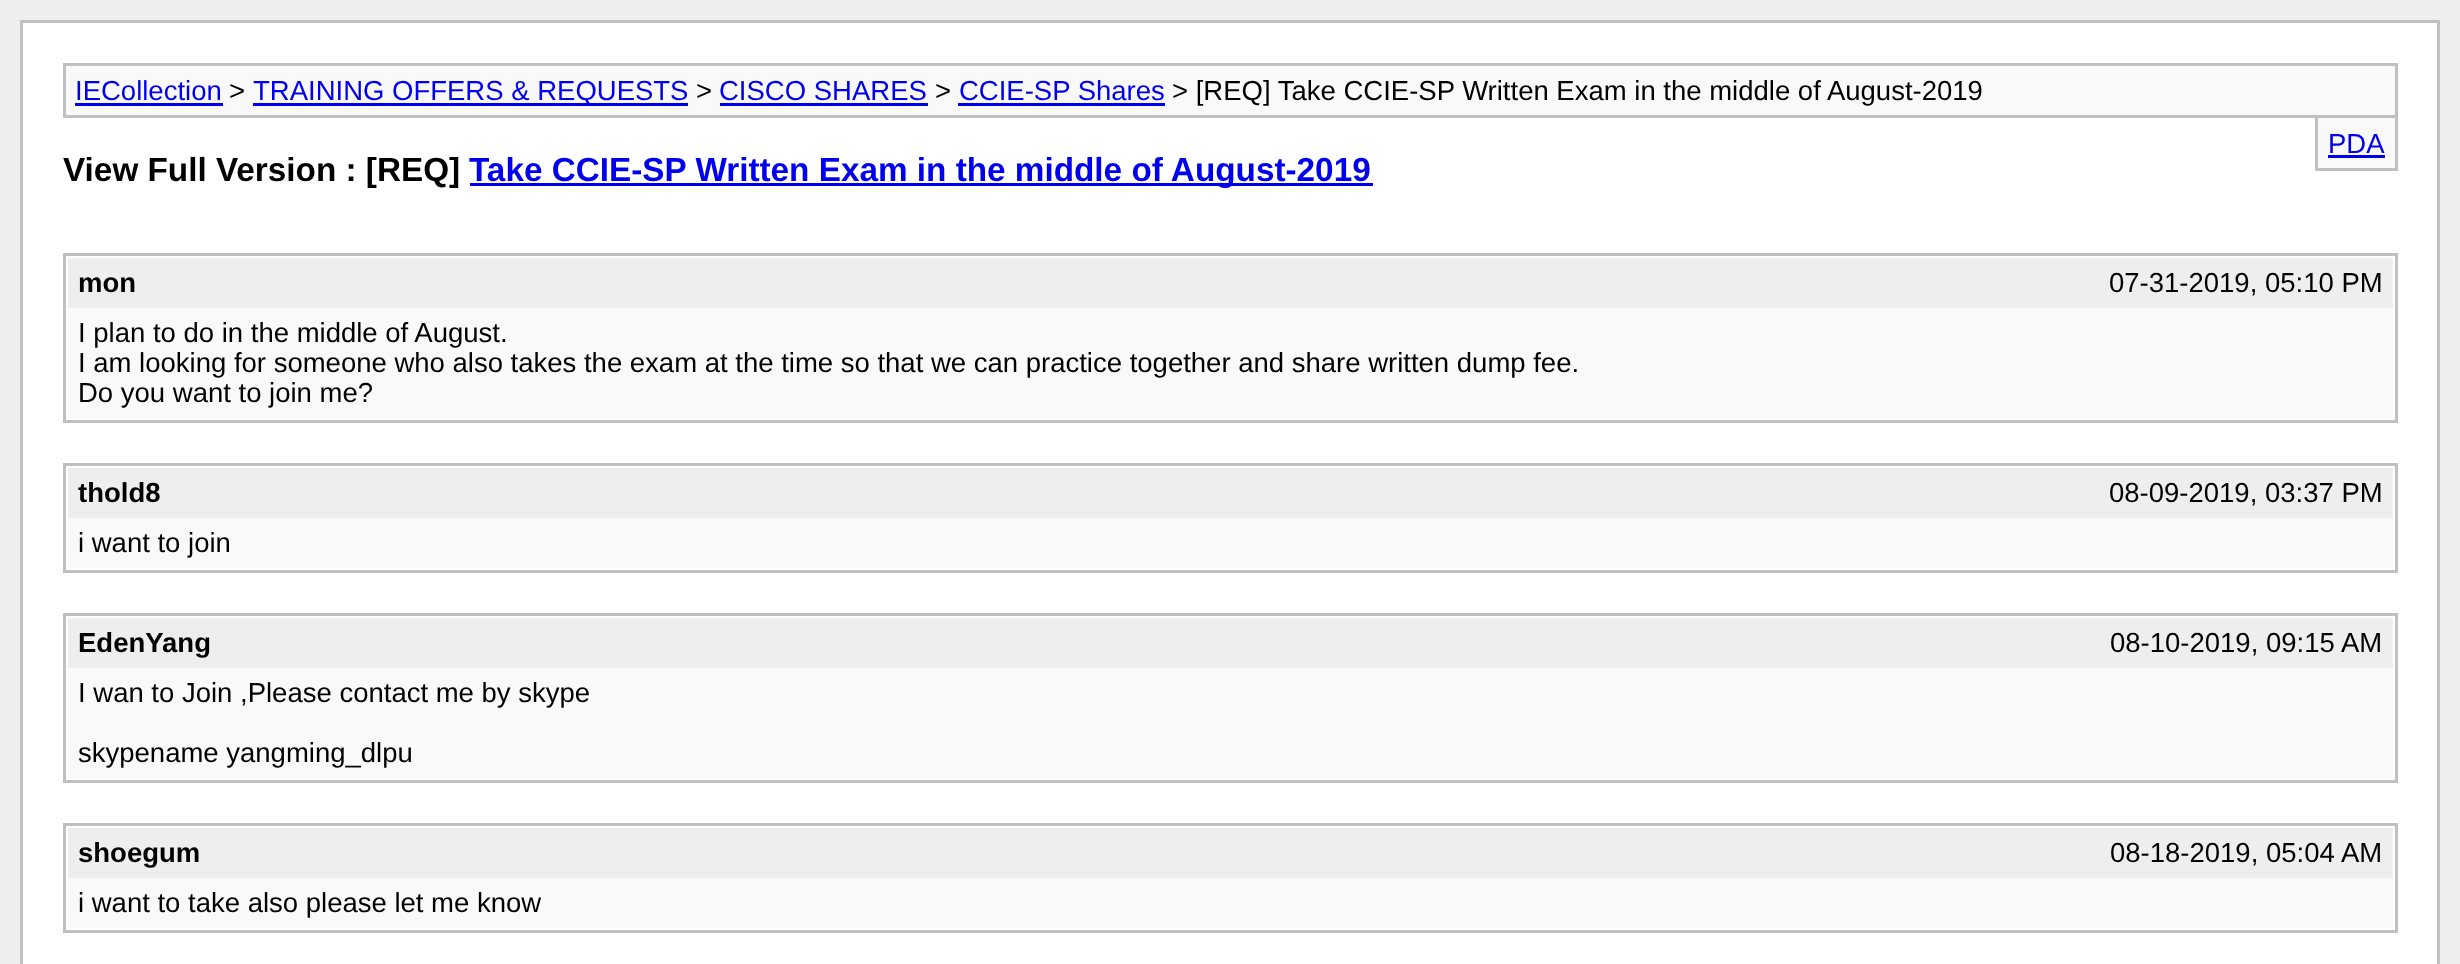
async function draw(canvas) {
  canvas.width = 2460
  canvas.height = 964
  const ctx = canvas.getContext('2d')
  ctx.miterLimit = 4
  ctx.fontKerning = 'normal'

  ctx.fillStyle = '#eee'
  ctx.fillRect(0, 0, 2460, 964)
  ctx.fillStyle = '#fff'
  ctx.beginPath()
  ctx.rect(21.5, 21.5, 2417, 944)
  ctx.fill()
  ctx.strokeStyle = '#c0c0c0'
  ctx.lineWidth = 3
  ctx.stroke()
  ctx.fillStyle = '#f9f9f9'
  ctx.beginPath()
  ctx.rect(64.5, 64.5, 2332, 52)
  ctx.fill()
  ctx.stroke()
  ctx.font = '27.5px Liberation Sans'
  ctx.fillStyle = '#00e'
  ctx.fillText('IECollection', 75, 100)
  ctx.fillRect(75, 103, 148, 3)
  ctx.fillStyle = '#000'
  ctx.fillText('>', 229, 100)
  ctx.fillStyle = '#00e'
  ctx.fillRect(253, 103, 435, 3)
  ctx.fillText('TRAINING OFFERS & REQUESTS', 253, 100)
  ctx.fillStyle = '#000'
  ctx.fillText('>', 696, 100)
  ctx.fillStyle = '#00e'
  ctx.fillText('CISCO SHARES', 719, 100)
  ctx.fillRect(720, 103, 208, 3)
  ctx.fillStyle = '#000'
  ctx.fillText('>', 935, 100)
  ctx.fillStyle = '#00e'
  ctx.fillText('CCIE-SP Shares', 959, 100)
  ctx.fillRect(958, 103, 207, 3)
  ctx.fillStyle = '#000'
  ctx.fillText('> [REQ] Take CCIE-SP Written Exam in the middle of August-2019', 1172, 100)
  ctx.fillStyle = '#f9f9f9'
  ctx.fillRect(2318, 118, 77, 50)
  ctx.fillStyle = '#c0c0c0'
  ctx.fillRect(2395, 118, 3, 52)
  ctx.fillRect(2315, 168, 83, 3)
  ctx.fillRect(2315, 118, 3, 52)
  ctx.fillStyle = '#00e'
  ctx.fillText('PDA', 2328, 153)
  ctx.fillRect(2328, 155, 57, 3)
  ctx.font = 'bold 33.3px Liberation Sans'
  ctx.fillStyle = '#000'
  ctx.fillText('View Full Version : [REQ]', 63, 181)
  ctx.fillStyle = '#00e'
  ctx.fillRect(470, 183, 903, 3)
  ctx.fillText('Take CCIE-SP Written Exam in the middle of August-2019', 469, 181)
  ctx.strokeRect(64.5, 254.5, 2332, 167)
  ctx.fillStyle = '#eee'
  ctx.fillRect(68, 258, 2325, 50)
  ctx.font = 'bold 27.5px Liberation Sans'
  ctx.fillStyle = '#000'
  ctx.fillText('mon', 78, 292)
  ctx.font = '27.5px Liberation Sans'
  ctx.fillText('07-31-2019, 05:10 PM', 2109, 292)
  ctx.fillStyle = '#f9f9f9'
  ctx.fillRect(68, 308, 2325, 110)
  ctx.fillStyle = '#000'
  ctx.fillText('I plan to do in the middle of August.', 78, 342)
  ctx.fillText('I am looking for someone who also takes the exam at the time so that we can practice together and share written dump fee.', 78, 372)
  ctx.fillText('Do you want to join me?', 78, 402)
  ctx.strokeRect(64.5, 464.5, 2332, 107)
  ctx.fillStyle = '#eee'
  ctx.fillRect(68, 468, 2325, 50)
  ctx.font = 'bold 27.5px Liberation Sans'
  ctx.fillStyle = '#000'
  ctx.fillText('thold8', 78, 502)
  ctx.font = '27.5px Liberation Sans'
  ctx.fillText('08-09-2019, 03:37 PM', 2109, 502)
  ctx.fillStyle = '#f9f9f9'
  ctx.fillRect(68, 518, 2325, 50)
  ctx.fillStyle = '#000'
  ctx.fillText('i want to join', 78, 552)
  ctx.strokeRect(64.5, 614.5, 2332, 167)
  ctx.fillStyle = '#eee'
  ctx.fillRect(68, 618, 2325, 50)
  ctx.font = 'bold 27.5px Liberation Sans'
  ctx.fillStyle = '#000'
  ctx.fillText('EdenYang', 78, 652)
  ctx.font = '27.5px Liberation Sans'
  ctx.fillText('08-10-2019, 09:15 AM', 2110, 652)
  ctx.fillStyle = '#f9f9f9'
  ctx.fillRect(68, 668, 2325, 110)
  ctx.fillStyle = '#000'
  ctx.fillText('I wan to Join ,Please contact me by skype', 78, 702)
  ctx.fillText('skypename yangming_dlpu', 78, 762)
  ctx.strokeRect(64.5, 824.5, 2332, 107)
  ctx.fillStyle = '#eee'
  ctx.fillRect(68, 828, 2325, 50)
  ctx.font = 'bold 27.5px Liberation Sans'
  ctx.fillStyle = '#000'
  ctx.fillText('shoegum', 78, 862)
  ctx.font = '27.5px Liberation Sans'
  ctx.fillText('08-18-2019, 05:04 AM', 2110, 862)
  ctx.fillStyle = '#f9f9f9'
  ctx.fillRect(68, 878, 2325, 50)
  ctx.fillStyle = '#000'
  ctx.fillText('i want to take also please let me know', 78, 912)
}

draw(document.querySelector('canvas'))
